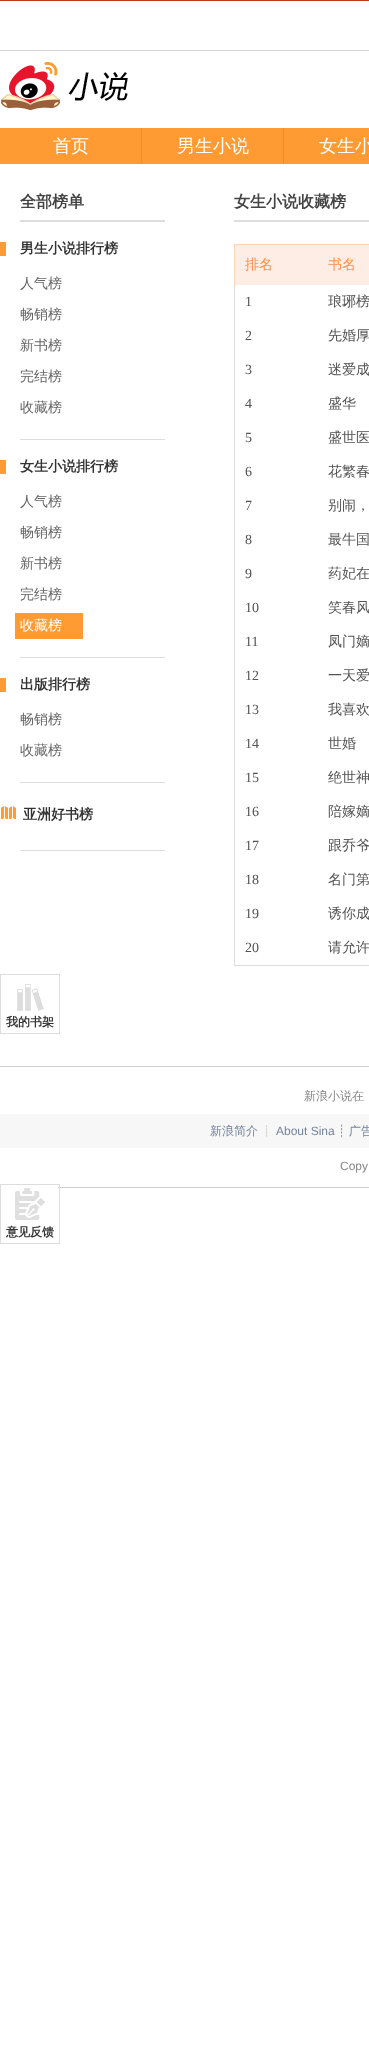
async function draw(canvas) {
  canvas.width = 369
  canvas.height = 2063
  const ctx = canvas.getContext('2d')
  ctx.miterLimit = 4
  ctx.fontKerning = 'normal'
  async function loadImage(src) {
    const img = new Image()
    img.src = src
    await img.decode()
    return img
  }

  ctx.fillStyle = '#fff'
  ctx.fillRect(0, 0, 369, 2063)
  ctx.fillStyle = '#bb3923'
  ctx.fillRect(0, 0, 369, 1)
  ctx.fillStyle = '#d5d5d5'
  ctx.fillRect(0, 50, 369, 1)
  ctx.drawImage(await loadImage('image0.png'), 1, 62, 127, 48)
  ctx.fillStyle = '#ff9b32'
  ctx.fillRect(0, 128, 141, 36)
  ctx.fillStyle = '#ff8432'
  ctx.fillRect(141, 128, 1, 36)
  ctx.font = '500 18px WenQuanYi Zen Hei'
  ctx.fillStyle = '#fff'
  ctx.fillText('首页', 53, 152)
  ctx.fillStyle = '#ff8432'
  ctx.fillRect(283, 128, 1, 36)
  ctx.fillStyle = '#ff9b32'
  ctx.fillRect(142, 128, 141, 36)
  ctx.fillStyle = '#fff'
  ctx.fillText('男生小说', 177, 152)
  ctx.fillStyle = '#ff9b32'
  ctx.fillRect(284, 128, 85, 36)
  ctx.fillStyle = '#fff'
  ctx.fillText('女生小', 319, 152)
  ctx.drawImage(await loadImage('image1.png'), 17, 984, 27, 27)
  ctx.strokeStyle = '#ddd'
  ctx.strokeRect(0.5, 974.5, 59, 59)
  ctx.font = 'bold 12px WenQuanYi Zen Hei'
  ctx.fillStyle = '#333'
  ctx.fillText('我的书架', 6, 1026)
  ctx.fillStyle = '#cfcfcf'
  ctx.fillRect(58, 1187, 311, 1)
  ctx.strokeRect(0.5, 1184.5, 59, 59)
  ctx.drawImage(await loadImage('image2.png'), 15, 1188, 30, 32)
  ctx.fillStyle = '#333'
  ctx.fillText('意见反馈', 6, 1236)
  ctx.fillStyle = '#ddd'
  ctx.fillRect(20, 220, 145, 2)
  ctx.font = 'bold 16px WenQuanYi Zen Hei'
  ctx.fillStyle = '#444'
  ctx.fillText('全部榜单', 20, 207)
  ctx.fillStyle = '#ddd'
  ctx.fillRect(20, 439, 145, 1)
  ctx.fillStyle = '#ff9b32'
  ctx.fillRect(0, 242, 6, 14)
  ctx.font = 'bold 14px WenQuanYi Zen Hei'
  ctx.fillStyle = '#333'
  ctx.fillText('男生小说排行榜', 20, 253)
  ctx.font = '500 14px WenQuanYi Zen Hei'
  ctx.fillStyle = '#666'
  ctx.fillText('人气榜', 20, 288)
  ctx.fillText('畅销榜', 20, 319)
  ctx.fillText('新书榜', 20, 350)
  ctx.fillText('完结榜', 20, 381)
  ctx.fillText('收藏榜', 20, 412)
  ctx.fillStyle = '#ddd'
  ctx.fillRect(20, 657, 145, 1)
  ctx.fillStyle = '#ff9b32'
  ctx.fillRect(0, 460, 6, 14)
  ctx.font = 'bold 14px WenQuanYi Zen Hei'
  ctx.fillStyle = '#333'
  ctx.fillText('女生小说排行榜', 20, 471)
  ctx.font = '500 14px WenQuanYi Zen Hei'
  ctx.fillStyle = '#666'
  ctx.fillText('人气榜', 20, 506)
  ctx.fillText('畅销榜', 20, 537)
  ctx.fillText('新书榜', 20, 568)
  ctx.fillText('完结榜', 20, 599)
  ctx.fillStyle = '#ff9b32'
  ctx.fillRect(15, 613, 68, 26)
  ctx.fillStyle = '#fff'
  ctx.fillText('收藏榜', 20, 630)
  ctx.fillStyle = '#ddd'
  ctx.fillRect(20, 782, 145, 1)
  ctx.fillStyle = '#ff9b32'
  ctx.fillRect(0, 678, 6, 14)
  ctx.font = 'bold 14px WenQuanYi Zen Hei'
  ctx.fillStyle = '#333'
  ctx.fillText('出版排行榜', 20, 689)
  ctx.font = '500 14px WenQuanYi Zen Hei'
  ctx.fillStyle = '#666'
  ctx.fillText('畅销榜', 20, 724)
  ctx.fillText('收藏榜', 20, 755)
  ctx.fillStyle = '#ddd'
  ctx.fillRect(20, 850, 145, 1)
  ctx.drawImage(await loadImage('image3.png'), 1, 806, 15, 13)
  ctx.font = 'bold 14px WenQuanYi Zen Hei'
  ctx.fillStyle = '#333'
  ctx.fillText('亚洲好书榜', 23, 819)
  ctx.fillStyle = '#ddd'
  ctx.fillRect(234, 220, 135, 2)
  ctx.font = 'bold 16px WenQuanYi Zen Hei'
  ctx.fillStyle = '#444'
  ctx.fillText('女生小说收藏榜', 234, 207)
  ctx.fillStyle = '#feede5'
  ctx.fillRect(235, 245, 134, 40)
  ctx.fillStyle = '#ffd4ba'
  ctx.fillRect(234, 244, 135, 1)
  ctx.fillStyle = '#dcdcdc'
  ctx.fillRect(234, 965, 135, 1)
  ctx.fillRect(234, 285, 1, 681)
  ctx.fillStyle = '#ffd4ba'
  ctx.fillRect(234, 244, 1, 42)
  ctx.font = '500 14px WenQuanYi Zen Hei'
  ctx.fillStyle = '#ff9148'
  ctx.fillText('排名', 245, 269)
  ctx.fillText('书名', 328, 269)
  ctx.font = '14px Liberation Serif'
  ctx.fillStyle = '#535353'
  ctx.fillText('1', 245, 306)
  ctx.font = '500 14px WenQuanYi Zen Hei'
  ctx.fillText('琅琊榜', 328, 306)
  ctx.font = '14px Liberation Serif'
  ctx.fillText('2', 245, 340)
  ctx.font = '500 14px WenQuanYi Zen Hei'
  ctx.fillText('先婚厚', 328, 340)
  ctx.font = '14px Liberation Serif'
  ctx.fillText('3', 245, 374)
  ctx.font = '500 14px WenQuanYi Zen Hei'
  ctx.fillText('迷爱成', 328, 374)
  ctx.font = '14px Liberation Serif'
  ctx.fillText('4', 245, 408)
  ctx.font = '500 14px WenQuanYi Zen Hei'
  ctx.fillText('盛华', 328, 408)
  ctx.font = '14px Liberation Serif'
  ctx.fillText('5', 245, 442)
  ctx.font = '500 14px WenQuanYi Zen Hei'
  ctx.fillText('盛世医', 328, 442)
  ctx.font = '14px Liberation Serif'
  ctx.fillText('6', 245, 476)
  ctx.font = '500 14px WenQuanYi Zen Hei'
  ctx.fillText('花繁春', 328, 476)
  ctx.font = '14px Liberation Serif'
  ctx.fillText('7', 245, 510)
  ctx.font = '500 14px WenQuanYi Zen Hei'
  ctx.fillText('别闹，', 328, 510)
  ctx.font = '14px Liberation Serif'
  ctx.fillText('8', 245, 544)
  ctx.font = '500 14px WenQuanYi Zen Hei'
  ctx.fillText('最牛国', 328, 544)
  ctx.font = '14px Liberation Serif'
  ctx.fillText('9', 245, 578)
  ctx.font = '500 14px WenQuanYi Zen Hei'
  ctx.fillText('药妃在', 328, 578)
  ctx.font = '14px Liberation Serif'
  ctx.fillText('10', 245, 612)
  ctx.font = '500 14px WenQuanYi Zen Hei'
  ctx.fillText('笑春风', 328, 612)
  ctx.font = '14px Liberation Serif'
  ctx.fillText('11', 245, 646)
  ctx.font = '500 14px WenQuanYi Zen Hei'
  ctx.fillText('凤门嫡', 328, 646)
  ctx.font = '14px Liberation Serif'
  ctx.fillText('12', 245, 680)
  ctx.font = '500 14px WenQuanYi Zen Hei'
  ctx.fillText('一天爱', 328, 680)
  ctx.font = '14px Liberation Serif'
  ctx.fillText('13', 245, 714)
  ctx.font = '500 14px WenQuanYi Zen Hei'
  ctx.fillText('我喜欢', 328, 714)
  ctx.font = '14px Liberation Serif'
  ctx.fillText('14', 245, 748)
  ctx.font = '500 14px WenQuanYi Zen Hei'
  ctx.fillText('世婚', 328, 748)
  ctx.font = '14px Liberation Serif'
  ctx.fillText('15', 245, 782)
  ctx.font = '500 14px WenQuanYi Zen Hei'
  ctx.fillText('绝世神', 328, 782)
  ctx.font = '14px Liberation Serif'
  ctx.fillText('16', 245, 816)
  ctx.font = '500 14px WenQuanYi Zen Hei'
  ctx.fillText('陪嫁嫡', 328, 816)
  ctx.font = '14px Liberation Serif'
  ctx.fillText('17', 245, 850)
  ctx.font = '500 14px WenQuanYi Zen Hei'
  ctx.fillText('跟乔爷', 328, 850)
  ctx.font = '14px Liberation Serif'
  ctx.fillText('18', 245, 884)
  ctx.font = '500 14px WenQuanYi Zen Hei'
  ctx.fillText('名门第', 328, 884)
  ctx.font = '14px Liberation Serif'
  ctx.fillText('19', 245, 918)
  ctx.font = '500 14px WenQuanYi Zen Hei'
  ctx.fillText('诱你成', 328, 918)
  ctx.font = '14px Liberation Serif'
  ctx.fillText('20', 245, 952)
  ctx.font = '500 14px WenQuanYi Zen Hei'
  ctx.fillText('请允许', 328, 952)
  ctx.fillStyle = '#cfcfcf'
  ctx.fillRect(0, 1066, 369, 1)
  ctx.font = '500 12px WenQuanYi Zen Hei'
  ctx.fillStyle = '#878787'
  ctx.fillText('新浪小说在', 304, 1100)
  ctx.fillStyle = '#f7f7f7'
  ctx.fillRect(0, 1114, 369, 34)
  ctx.fillStyle = '#75839d'
  ctx.fillText('新浪简介', 210, 1135)
  ctx.fillStyle = '#939393'
  ctx.fillText('┊', 261, 1135)
  ctx.font = '12px Liberation Sans'
  ctx.fillStyle = '#75839d'
  ctx.fillText('About Sina', 276, 1135)
  ctx.font = '12px DejaVu Sans'
  ctx.fillStyle = '#939393'
  ctx.fillText('┊', 338, 1135)
  ctx.font = '500 12px WenQuanYi Zen Hei'
  ctx.fillStyle = '#75839d'
  ctx.fillText('广告', 349, 1135)
  ctx.font = '12px Liberation Sans'
  ctx.fillStyle = '#878787'
  ctx.fillText('Copy', 340, 1170)
}

draw(document.querySelector('canvas'))
